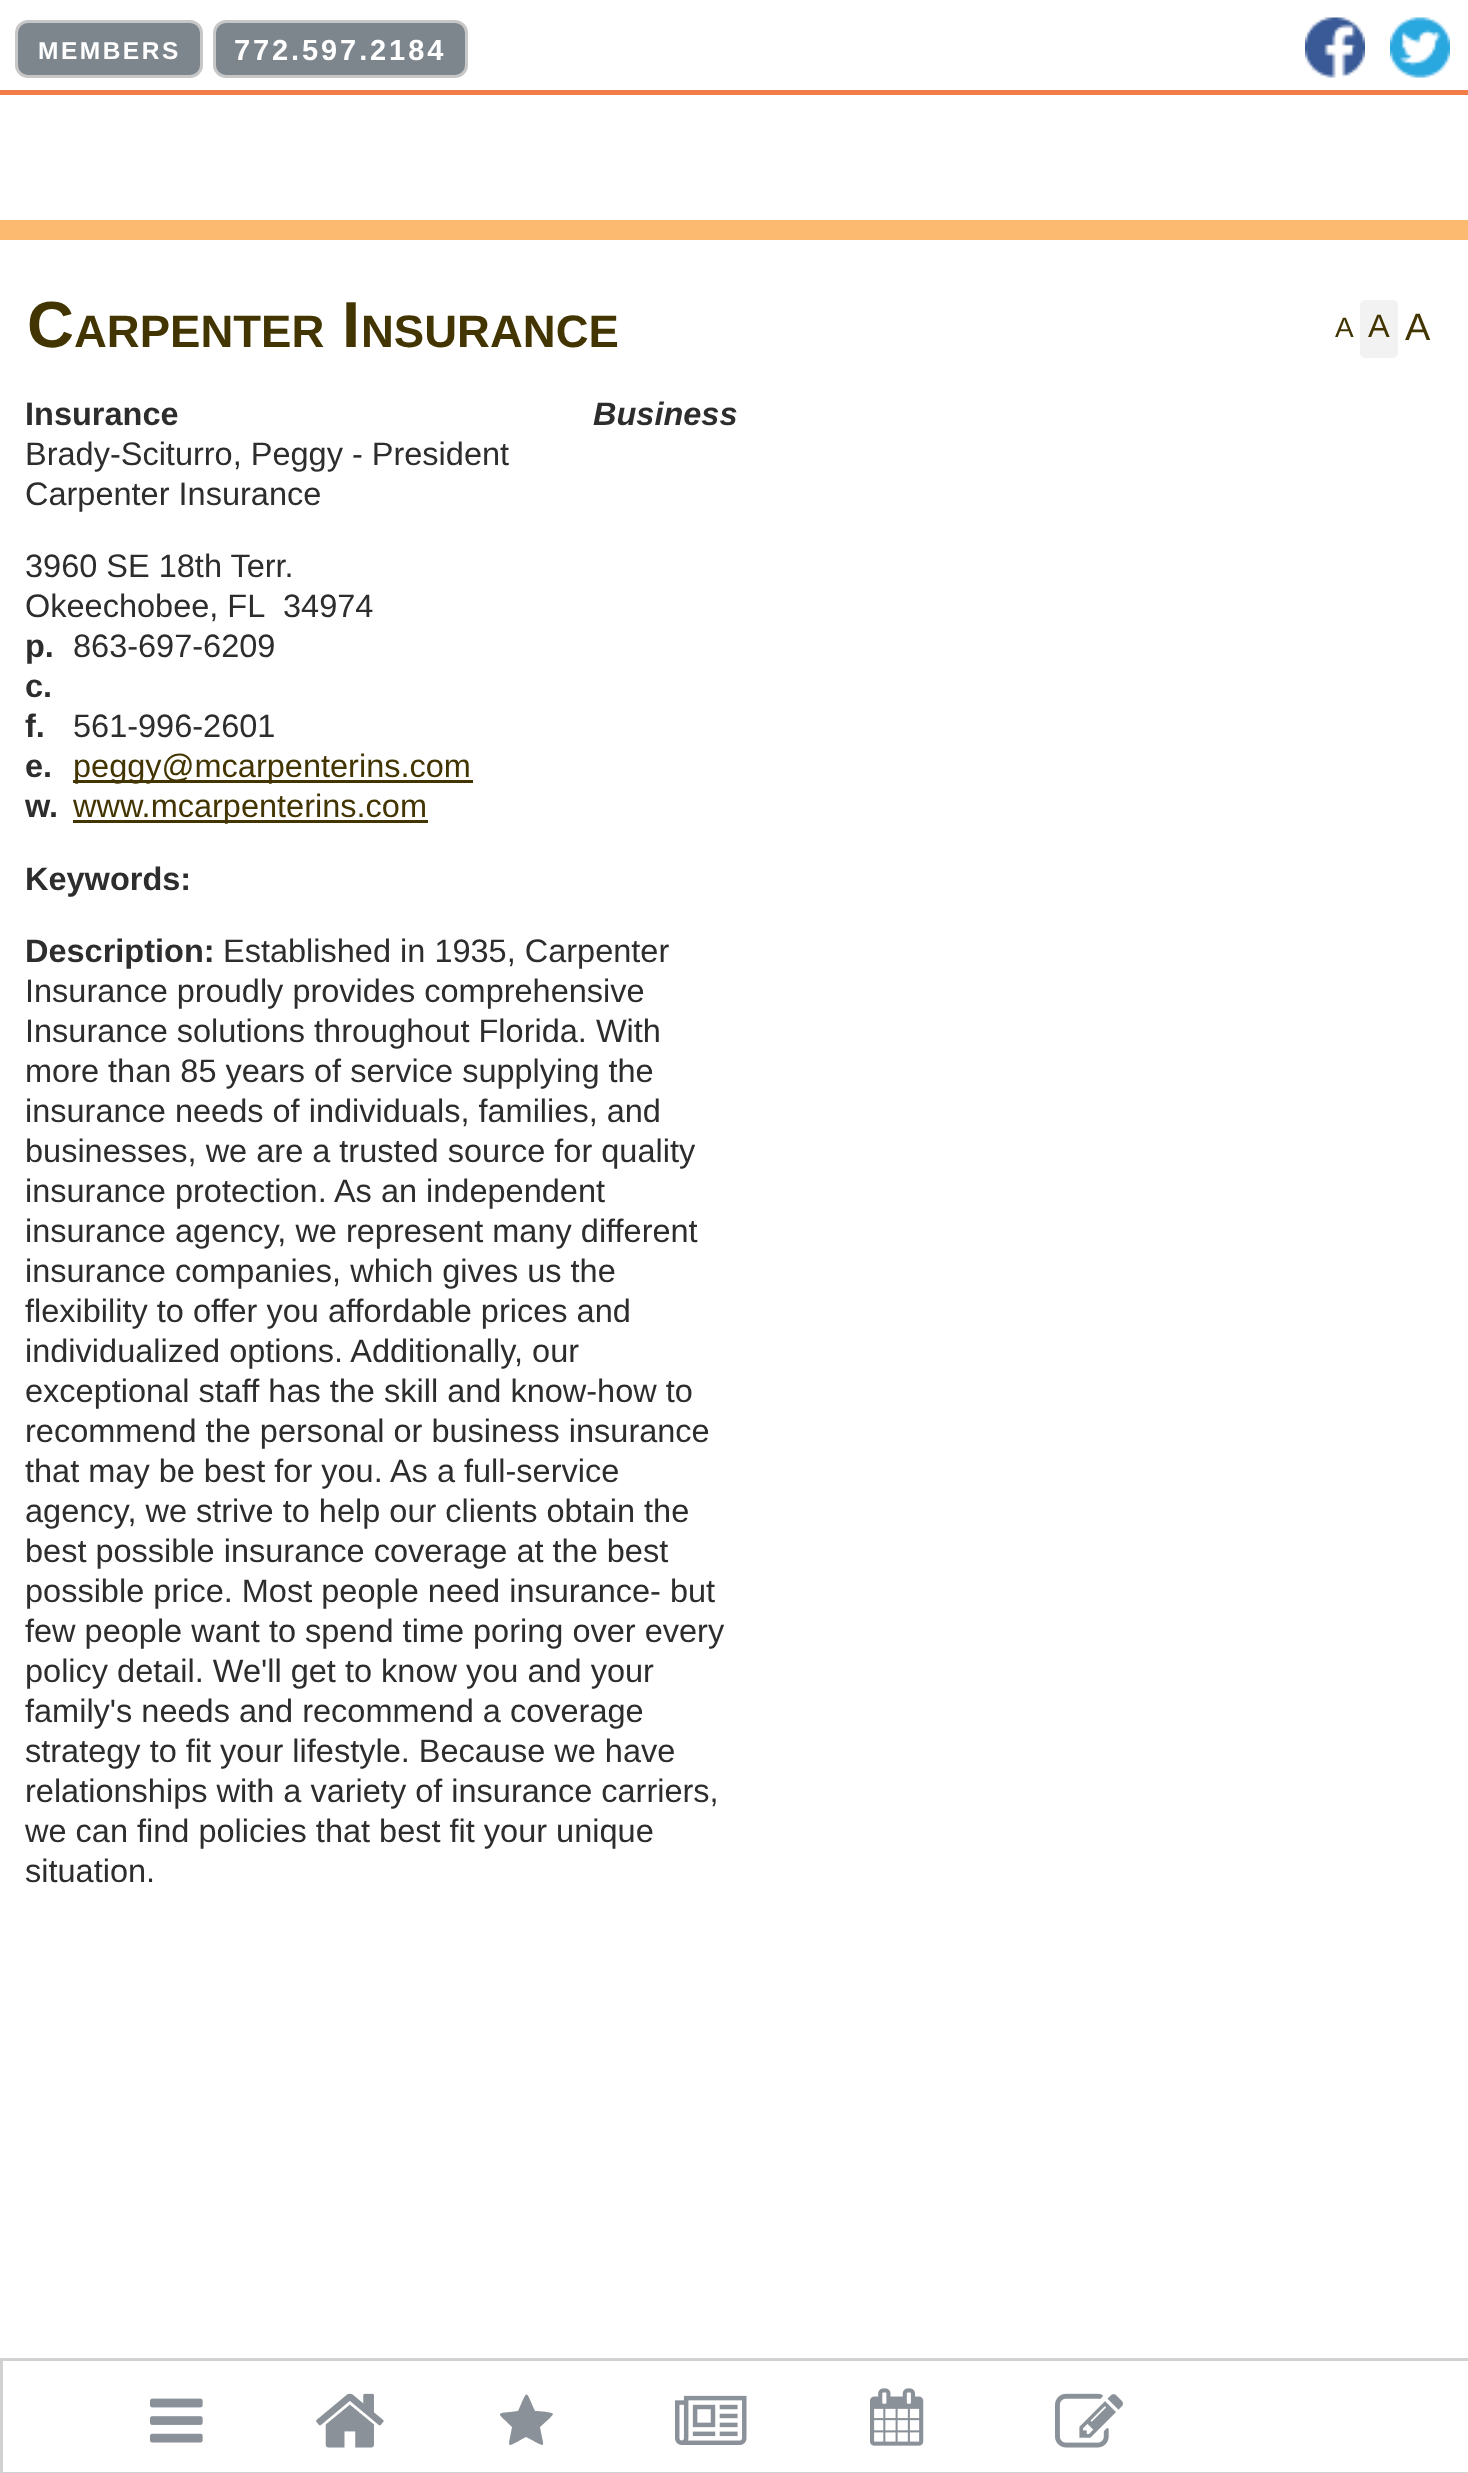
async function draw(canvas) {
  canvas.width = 1468
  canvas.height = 2473
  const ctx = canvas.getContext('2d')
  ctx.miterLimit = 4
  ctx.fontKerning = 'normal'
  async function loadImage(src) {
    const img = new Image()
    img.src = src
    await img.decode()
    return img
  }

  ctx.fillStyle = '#fff'
  ctx.fillRect(0, 0, 1468, 2473)
  ctx.fillStyle = '#7d858d'
  ctx.beginPath()
  ctx.roundRect(16.5, 21.5, 185, 55, 11.5)
  ctx.fill()
  ctx.strokeStyle = '#c7c7c7'
  ctx.lineWidth = 3
  ctx.stroke()
  ctx.letterSpacing = '2.5px'
  ctx.font = 'bold 24.5px Liberation Sans'
  ctx.fillStyle = '#fff'
  ctx.fillText('MEMBERS', 38, 59)
  ctx.fillStyle = '#7d858d'
  ctx.beginPath()
  ctx.roundRect(214.5, 21.5, 252, 55, 11.5)
  ctx.fill()
  ctx.stroke()
  ctx.letterSpacing = '2.9px'
  ctx.font = 'bold 29px Liberation Sans'
  ctx.fillStyle = '#fff'
  ctx.fillText('772.597.2184', 234, 60)
  ctx.drawImage(await loadImage('image0.png'), 1305, 17, 60, 61)
  ctx.drawImage(await loadImage('image1.png'), 1390, 17, 60, 61)
  ctx.fillStyle = '#f27d47'
  ctx.fillRect(0, 90, 1468, 5)
  ctx.fillStyle = '#fcb970'
  ctx.fillRect(0, 220, 1468, 20)
  ctx.letterSpacing = '0px'
  ctx.font = 'bold 65px Liberation Sans'
  ctx.fillStyle = '#433502'
  ctx.fillText('C', 27, 347)
  ctx.font = 'bold 45.5px Liberation Sans'
  ctx.fillText('ARPENTER', 74, 347)
  ctx.font = 'bold 65px Liberation Sans'
  ctx.fillText('I', 342, 347)
  ctx.font = 'bold 45.5px Liberation Sans'
  ctx.fillText('NSURANCE', 361, 347)
  ctx.font = '28px Liberation Sans'
  ctx.fillText('A', 1335, 337)
  ctx.fillStyle = '#f2f2f2'
  ctx.beginPath()
  ctx.roundRect(1360, 300, 38, 58, 5)
  ctx.fill()
  ctx.font = '32.5px Liberation Sans'
  ctx.fillStyle = '#433502'
  ctx.fillText('A', 1368, 337)
  ctx.font = '38px Liberation Sans'
  ctx.fillText('A', 1405, 340)
  ctx.font = 'bold 32.5px Liberation Sans'
  ctx.fillStyle = '#2d2d2d'
  ctx.fillText('Insurance', 25, 425)
  ctx.font = 'italic bold 32.5px Liberation Sans'
  ctx.fillText('Business', 593, 425)
  ctx.font = '32.5px Liberation Sans'
  ctx.fillText('Brady-Sciturro, Peggy - President', 25, 465)
  ctx.fillText('Carpenter Insurance', 25, 505)
  ctx.fillText('3960 SE 18th Terr.', 25, 577)
  ctx.fillText('Okeechobee, FL', 25, 617)
  ctx.fillText('34974', 283, 617)
  ctx.font = 'bold 32.5px Liberation Sans'
  ctx.fillText('p.', 25, 657)
  ctx.font = '32.5px Liberation Sans'
  ctx.fillText('863-697-6209', 73, 657)
  ctx.font = 'bold 32.5px Liberation Sans'
  ctx.fillText('c.', 25, 697)
  ctx.fillText('f.', 25, 737)
  ctx.font = '32.5px Liberation Sans'
  ctx.fillText('561-996-2601', 73, 737)
  ctx.font = 'bold 32.5px Liberation Sans'
  ctx.fillText('e.', 25, 777)
  ctx.fillStyle = '#433502'
  ctx.fillRect(73, 780, 400, 3)
  ctx.font = '32.5px Liberation Sans'
  ctx.fillText('peggy@mcarpenterins.com', 73, 777)
  ctx.font = 'bold 32.5px Liberation Sans'
  ctx.fillStyle = '#2d2d2d'
  ctx.fillText('w.', 25, 817)
  ctx.fillStyle = '#433502'
  ctx.fillRect(73, 820, 355, 3)
  ctx.font = '32.5px Liberation Sans'
  ctx.fillText('www.mcarpenterins.com', 73, 817)
  ctx.font = 'bold 32.5px Liberation Sans'
  ctx.fillStyle = '#2d2d2d'
  ctx.fillText('Keywords:', 25, 890)
  ctx.fillText('Description:', 25, 962)
  ctx.font = '32.5px Liberation Sans'
  ctx.fillText('Established in 1935, Carpenter', 223, 962)
  ctx.fillText('Insurance proudly provides comprehensive', 25, 1002)
  ctx.fillText('Insurance solutions throughout Florida. With', 25, 1042)
  ctx.fillText('more than 85 years of service supplying the', 25, 1082)
  ctx.fillText('insurance needs of individuals, families, and', 25, 1122)
  ctx.fillText('businesses, we are a trusted source for quality', 25, 1162)
  ctx.fillText('insurance protection. As an independent', 25, 1202)
  ctx.fillText('insurance agency, we represent many different', 25, 1242)
  ctx.fillText('insurance companies, which gives us the', 25, 1282)
  ctx.fillText('flexibility to offer you affordable prices and', 25, 1322)
  ctx.fillText('individualized options. Additionally, our', 25, 1362)
  ctx.fillText('exceptional staff has the skill and know-how to', 25, 1402)
  ctx.fillText('recommend the personal or business insurance', 25, 1442)
  ctx.fillText('that may be best for you. As a full-service', 25, 1482)
  ctx.fillText('agency, we strive to help our clients obtain the', 25, 1522)
  ctx.fillText('best possible insurance coverage at the best', 25, 1562)
  ctx.fillText('possible price. Most people need insurance- but', 25, 1602)
  ctx.fillText('few people want to spend time poring over every', 25, 1642)
  ctx.fillText('policy detail. We\'ll get to know you and your', 25, 1682)
  ctx.fillText('family\'s needs and recommend a coverage', 25, 1722)
  ctx.fillText('strategy to fit your lifestyle. Because we have', 25, 1762)
  ctx.fillText('relationships with a variety of insurance carriers,', 25, 1802)
  ctx.fillText('we can find policies that best fit your unique', 25, 1842)
  ctx.fillText('situation.', 25, 1882)
  ctx.strokeStyle = '#d1d1d1'
  ctx.strokeRect(1.5, 2359.5, 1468, 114)
  ctx.drawImage(await loadImage('image2.png'), 150, 2398, 53, 45)
  ctx.drawImage(await loadImage('image3.png'), 316, 2393, 68, 55)
  ctx.fillStyle = '#8a9198'
  ctx.beginPath()
  ctx.moveTo(553, 2414)
  ctx.bezierCurveTo(553, 2412, 538, 2411, 535, 2411)
  ctx.bezierCurveTo(525, 2389, 528, 2389, 518, 2411)
  ctx.bezierCurveTo(494, 2414, 496, 2411, 512, 2427)
  ctx.bezierCurveTo(508, 2450, 505, 2448, 526, 2437)
  ctx.bezierCurveTo(548, 2448, 544, 2450, 540, 2427)
  ctx.bezierCurveTo(542, 2425, 553, 2416, 553, 2414)
  ctx.closePath()
  ctx.fill()
  ctx.drawImage(await loadImage('image4.png'), 675, 2395, 72, 50)
  ctx.drawImage(await loadImage('image5.png'), 870, 2388, 54, 58)
  ctx.drawImage(await loadImage('image6.png'), 1055, 2393, 68, 55)
}

draw(document.querySelector('canvas'))
